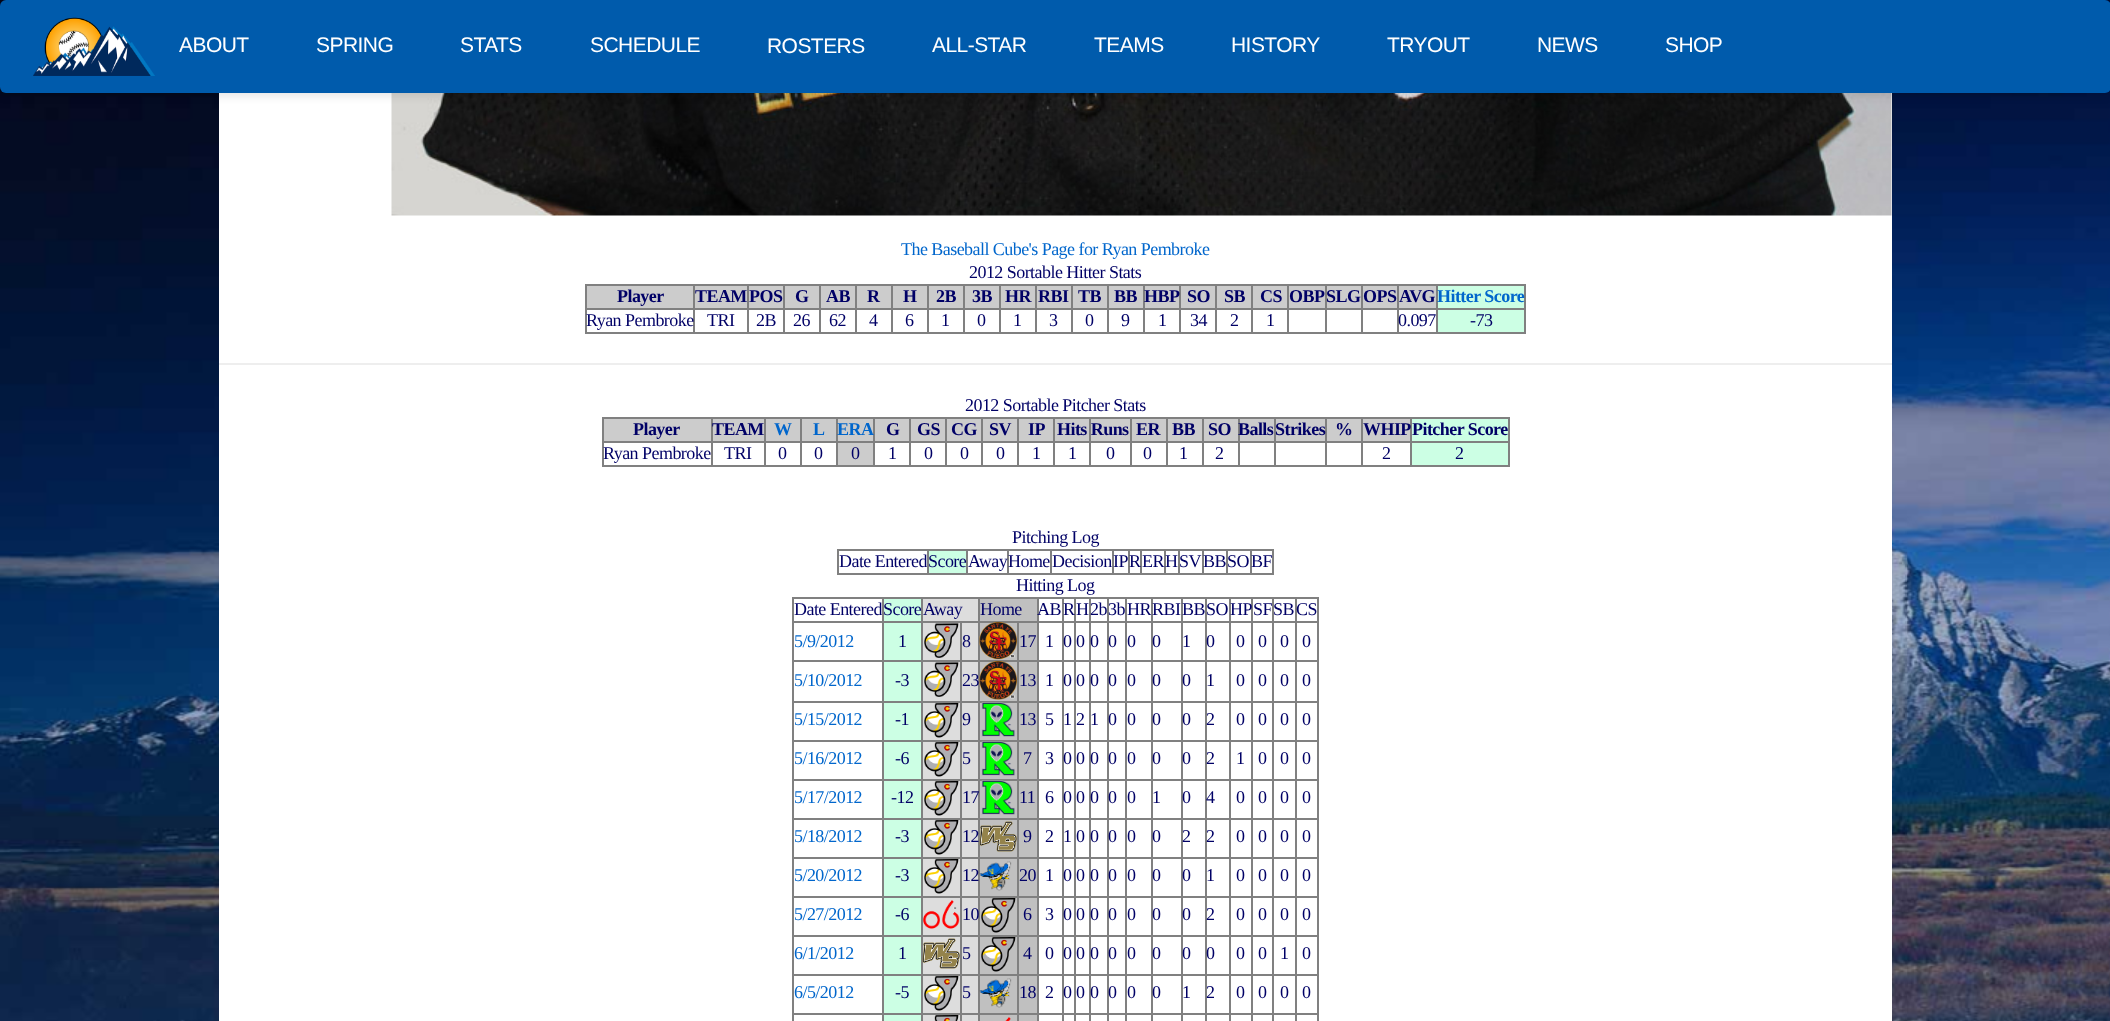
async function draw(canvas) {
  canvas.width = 2110
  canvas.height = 1021
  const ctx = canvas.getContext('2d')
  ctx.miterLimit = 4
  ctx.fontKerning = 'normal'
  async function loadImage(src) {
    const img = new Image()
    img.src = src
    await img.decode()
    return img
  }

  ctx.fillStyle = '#fff'
  ctx.fillRect(0, 0, 2110, 1021)
  ctx.drawImage(await loadImage('image0.png'), 0, 0, 2110, 1021)
  ctx.fillRect(219, 93, 1673, 928)
  ctx.drawImage(await loadImage('image2.png'), 391, 93, 1501, 123)
  ctx.fillStyle = '#0000001a'
  ctx.filter = 'blur(4px)'
  ctx.beginPath()
  ctx.roundRect(0, 3, 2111, 93, 6)
  ctx.fill()
  ctx.filter = 'none'
  ctx.fillStyle = '#005bac'
  ctx.beginPath()
  ctx.roundRect(0, 0, 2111, 93, 6)
  ctx.fill()
  ctx.drawImage(await loadImage('image1.png'), 33, 17, 122, 59)
  ctx.letterSpacing = '-0.55px'
  ctx.font = '21px Liberation Sans'
  ctx.fillStyle = '#fff'
  ctx.fillText('ABOUT', 179, 52)
  ctx.fillText('SPRING', 316, 52)
  ctx.fillText('STATS', 460, 52)
  ctx.fillText('SCHEDULE', 590, 52)
  ctx.fillText('ROSTERS', 767, 53)
  ctx.fillText('ALL-STAR', 932, 52)
  ctx.fillText('TEAMS', 1094, 52)
  ctx.fillText('HISTORY', 1231, 52)
  ctx.fillText('TRYOUT', 1387, 52)
  ctx.fillText('NEWS', 1537, 52)
  ctx.fillText('SHOP', 1665, 52)
  ctx.font = '18px Liberation Serif'
  ctx.fillStyle = '#06c'
  ctx.fillText('The Baseball Cube\'s Page for Ryan Pembroke', 901, 255)
  ctx.fillStyle = '#006'
  ctx.fillText('2012 Sortable Hitter Stats', 969, 278)
  ctx.fillStyle = '#808080'
  ctx.fillRect(585, 284, 941, 2)
  ctx.fillRect(1524, 284, 2, 49)
  ctx.fillRect(585, 332, 941, 2)
  ctx.fillRect(585, 284, 2, 49)
  ctx.fillStyle = '#ccc'
  ctx.fillRect(587, 286, 106, 22)
  ctx.font = 'bold 18px Liberation Serif'
  ctx.fillStyle = '#006'
  ctx.fillText('Player', 617, 302)
  ctx.fillStyle = '#ccc'
  ctx.fillRect(695, 286, 52, 22)
  ctx.fillStyle = '#808080'
  ctx.fillRect(1436, 308, 90, 2)
  ctx.fillRect(1436, 308, 2, 25)
  ctx.fillRect(1397, 308, 40, 2)
  ctx.fillRect(1397, 308, 2, 25)
  ctx.fillRect(1361, 308, 37, 2)
  ctx.fillRect(1361, 308, 2, 25)
  ctx.fillRect(1325, 308, 37, 2)
  ctx.fillRect(1325, 308, 2, 25)
  ctx.fillRect(1287, 308, 39, 2)
  ctx.fillRect(1287, 308, 2, 25)
  ctx.fillRect(1251, 308, 38, 2)
  ctx.fillRect(1251, 308, 2, 25)
  ctx.fillRect(1215, 308, 38, 2)
  ctx.fillRect(1215, 308, 2, 25)
  ctx.fillRect(1179, 308, 38, 2)
  ctx.fillRect(1179, 308, 2, 25)
  ctx.fillRect(1143, 308, 38, 2)
  ctx.fillRect(1143, 308, 2, 25)
  ctx.fillRect(1107, 308, 38, 2)
  ctx.fillRect(1107, 308, 2, 25)
  ctx.fillRect(1071, 308, 38, 2)
  ctx.fillRect(1071, 308, 2, 25)
  ctx.fillRect(1035, 308, 38, 2)
  ctx.fillRect(1035, 308, 2, 25)
  ctx.fillRect(999, 308, 38, 2)
  ctx.fillRect(999, 308, 2, 25)
  ctx.fillRect(963, 308, 38, 2)
  ctx.fillRect(963, 308, 2, 25)
  ctx.fillRect(927, 308, 38, 2)
  ctx.fillRect(927, 308, 2, 25)
  ctx.fillRect(891, 308, 38, 2)
  ctx.fillRect(891, 308, 2, 25)
  ctx.fillRect(855, 308, 38, 2)
  ctx.fillRect(855, 308, 2, 25)
  ctx.fillRect(819, 308, 38, 2)
  ctx.fillRect(819, 308, 2, 25)
  ctx.fillRect(783, 308, 38, 2)
  ctx.fillRect(783, 308, 2, 25)
  ctx.fillRect(747, 308, 38, 2)
  ctx.fillRect(747, 308, 2, 25)
  ctx.fillRect(693, 308, 56, 2)
  ctx.fillRect(693, 308, 2, 25)
  ctx.fillRect(585, 308, 110, 2)
  ctx.fillRect(693, 284, 2, 25)
  ctx.fillStyle = '#006'
  ctx.fillText('TEAM', 695, 302)
  ctx.fillStyle = '#ccc'
  ctx.fillRect(749, 286, 34, 22)
  ctx.fillStyle = '#808080'
  ctx.fillRect(747, 284, 2, 25)
  ctx.fillStyle = '#006'
  ctx.fillText('POS', 749, 302)
  ctx.fillStyle = '#ccc'
  ctx.fillRect(785, 286, 34, 22)
  ctx.fillStyle = '#808080'
  ctx.fillRect(783, 284, 2, 25)
  ctx.fillStyle = '#006'
  ctx.fillText('G', 795, 302)
  ctx.fillStyle = '#ccc'
  ctx.fillRect(821, 286, 34, 22)
  ctx.fillStyle = '#808080'
  ctx.fillRect(819, 284, 2, 25)
  ctx.fillStyle = '#006'
  ctx.fillText('AB', 826, 302)
  ctx.fillStyle = '#ccc'
  ctx.fillRect(857, 286, 34, 22)
  ctx.fillStyle = '#808080'
  ctx.fillRect(855, 284, 2, 25)
  ctx.fillStyle = '#006'
  ctx.fillText('R', 867, 302)
  ctx.fillStyle = '#ccc'
  ctx.fillRect(893, 286, 34, 22)
  ctx.fillStyle = '#808080'
  ctx.fillRect(891, 284, 2, 25)
  ctx.fillStyle = '#006'
  ctx.fillText('H', 903, 302)
  ctx.fillStyle = '#ccc'
  ctx.fillRect(929, 286, 34, 22)
  ctx.fillStyle = '#808080'
  ctx.fillRect(927, 284, 2, 25)
  ctx.fillStyle = '#006'
  ctx.fillText('2B', 936, 302)
  ctx.fillStyle = '#ccc'
  ctx.fillRect(965, 286, 34, 22)
  ctx.fillStyle = '#808080'
  ctx.fillRect(963, 284, 2, 25)
  ctx.fillStyle = '#006'
  ctx.fillText('3B', 972, 302)
  ctx.fillStyle = '#ccc'
  ctx.fillRect(1001, 286, 34, 22)
  ctx.fillStyle = '#808080'
  ctx.fillRect(999, 284, 2, 25)
  ctx.fillStyle = '#006'
  ctx.fillText('HR', 1005, 302)
  ctx.fillStyle = '#ccc'
  ctx.fillRect(1037, 286, 34, 22)
  ctx.fillStyle = '#808080'
  ctx.fillRect(1035, 284, 2, 25)
  ctx.fillStyle = '#006'
  ctx.fillText('RBI', 1038, 302)
  ctx.fillStyle = '#ccc'
  ctx.fillRect(1073, 286, 34, 22)
  ctx.fillStyle = '#808080'
  ctx.fillRect(1071, 284, 2, 25)
  ctx.fillStyle = '#006'
  ctx.fillText('TB', 1078, 302)
  ctx.fillStyle = '#ccc'
  ctx.fillRect(1109, 286, 34, 22)
  ctx.fillStyle = '#808080'
  ctx.fillRect(1107, 284, 2, 25)
  ctx.fillStyle = '#006'
  ctx.fillText('BB', 1114, 302)
  ctx.fillStyle = '#ccc'
  ctx.fillRect(1145, 286, 34, 22)
  ctx.fillStyle = '#808080'
  ctx.fillRect(1143, 284, 2, 25)
  ctx.fillRect(1179, 284, 2, 25)
  ctx.fillStyle = '#006'
  ctx.fillText('HBP', 1144, 302)
  ctx.fillStyle = '#ccc'
  ctx.fillRect(1181, 286, 34, 22)
  ctx.fillStyle = '#006'
  ctx.fillText('SO', 1187, 302)
  ctx.fillStyle = '#ccc'
  ctx.fillRect(1217, 286, 34, 22)
  ctx.fillStyle = '#808080'
  ctx.fillRect(1215, 284, 2, 25)
  ctx.fillStyle = '#006'
  ctx.fillText('SB', 1224, 302)
  ctx.fillStyle = '#ccc'
  ctx.fillRect(1253, 286, 34, 22)
  ctx.fillStyle = '#808080'
  ctx.fillRect(1251, 284, 2, 25)
  ctx.fillStyle = '#006'
  ctx.fillText('CS', 1260, 302)
  ctx.fillStyle = '#ccc'
  ctx.fillRect(1289, 286, 36, 22)
  ctx.fillStyle = '#808080'
  ctx.fillRect(1287, 284, 2, 25)
  ctx.fillStyle = '#006'
  ctx.fillText('OBP', 1289, 302)
  ctx.fillStyle = '#ccc'
  ctx.fillRect(1327, 286, 34, 22)
  ctx.fillStyle = '#808080'
  ctx.fillRect(1325, 284, 2, 25)
  ctx.fillStyle = '#006'
  ctx.fillText('SLG', 1326, 302)
  ctx.fillStyle = '#ccc'
  ctx.fillRect(1363, 286, 34, 22)
  ctx.fillStyle = '#808080'
  ctx.fillRect(1361, 284, 2, 25)
  ctx.fillStyle = '#006'
  ctx.fillText('OPS', 1363, 302)
  ctx.fillStyle = '#ccc'
  ctx.fillRect(1399, 286, 37, 22)
  ctx.fillStyle = '#808080'
  ctx.fillRect(1397, 284, 2, 25)
  ctx.fillStyle = '#006'
  ctx.fillText('AVG', 1399, 302)
  ctx.fillStyle = '#ccffe4'
  ctx.fillRect(1438, 286, 86, 22)
  ctx.fillStyle = '#808080'
  ctx.fillRect(1436, 284, 2, 25)
  ctx.fillStyle = '#06c'
  ctx.fillText('Hitter Score', 1437, 302)
  ctx.font = '18px Liberation Serif'
  ctx.fillStyle = '#006'
  ctx.fillText('Ryan Pembroke', 586, 326)
  ctx.fillText('TRI', 707, 326)
  ctx.fillText('2B', 756, 326)
  ctx.fillText('26', 793, 326)
  ctx.fillText('62', 829, 326)
  ctx.fillText('4', 869, 326)
  ctx.fillText('6', 905, 326)
  ctx.fillText('1', 941, 326)
  ctx.fillText('0', 977, 326)
  ctx.fillText('1', 1013, 326)
  ctx.fillText('3', 1049, 326)
  ctx.fillText('0', 1085, 326)
  ctx.fillText('9', 1121, 326)
  ctx.fillText('1', 1158, 326)
  ctx.fillText('34', 1190, 326)
  ctx.fillText('2', 1230, 326)
  ctx.fillText('1', 1266, 326)
  ctx.fillText('0.097', 1398, 326)
  ctx.fillStyle = '#ccffe4'
  ctx.fillRect(1438, 310, 86, 22)
  ctx.fillStyle = '#006'
  ctx.fillText('-73', 1470, 326)
  ctx.fillStyle = '#eee'
  ctx.fillRect(219, 363, 1673, 2)
  ctx.fillStyle = '#006'
  ctx.fillText('2012 Sortable Pitcher Stats', 965, 411)
  ctx.fillStyle = '#808080'
  ctx.fillRect(602, 417, 907, 2)
  ctx.fillRect(1508, 417, 2, 50)
  ctx.fillRect(602, 465, 907, 2)
  ctx.fillRect(602, 417, 2, 50)
  ctx.fillStyle = '#ccc'
  ctx.fillRect(604, 419, 107, 22)
  ctx.font = 'bold 18px Liberation Serif'
  ctx.fillStyle = '#006'
  ctx.fillText('Player', 633, 435)
  ctx.fillStyle = '#ccc'
  ctx.fillRect(1091, 419, 39, 22)
  ctx.fillStyle = '#808080'
  ctx.fillRect(1410, 441, 99, 2)
  ctx.fillRect(1410, 441, 2, 26)
  ctx.fillRect(1361, 441, 51, 2)
  ctx.fillRect(1361, 441, 2, 26)
  ctx.fillRect(1325, 441, 37, 2)
  ctx.fillRect(1325, 441, 2, 26)
  ctx.fillRect(1274, 441, 52, 2)
  ctx.fillRect(1274, 441, 2, 26)
  ctx.fillRect(1238, 441, 37, 2)
  ctx.fillRect(1238, 441, 2, 26)
  ctx.fillRect(1202, 441, 37, 2)
  ctx.fillRect(1202, 441, 2, 26)
  ctx.fillRect(1166, 441, 37, 2)
  ctx.fillRect(1166, 441, 2, 26)
  ctx.fillRect(1130, 441, 37, 2)
  ctx.fillRect(1130, 441, 2, 26)
  ctx.fillRect(1089, 441, 42, 2)
  ctx.fillRect(1089, 441, 2, 26)
  ctx.fillRect(1053, 441, 38, 2)
  ctx.fillRect(1089, 417, 2, 26)
  ctx.fillStyle = '#ccc'
  ctx.fillRect(713, 419, 51, 22)
  ctx.fillStyle = '#808080'
  ctx.fillRect(1053, 441, 2, 26)
  ctx.fillRect(1017, 441, 38, 2)
  ctx.fillRect(1017, 441, 2, 26)
  ctx.fillRect(981, 441, 38, 2)
  ctx.fillRect(981, 441, 2, 26)
  ctx.fillRect(945, 441, 38, 2)
  ctx.fillRect(945, 441, 2, 26)
  ctx.fillRect(909, 441, 38, 2)
  ctx.fillRect(909, 441, 2, 26)
  ctx.fillRect(873, 441, 38, 2)
  ctx.fillRect(873, 441, 2, 26)
  ctx.fillRect(836, 441, 39, 2)
  ctx.fillRect(836, 441, 2, 26)
  ctx.fillRect(800, 441, 37, 2)
  ctx.fillRect(800, 441, 2, 26)
  ctx.fillRect(764, 441, 37, 2)
  ctx.fillRect(764, 441, 2, 26)
  ctx.fillRect(711, 441, 54, 2)
  ctx.fillRect(711, 441, 2, 26)
  ctx.fillRect(602, 441, 111, 2)
  ctx.fillRect(711, 417, 2, 26)
  ctx.fillStyle = '#006'
  ctx.fillText('TEAM', 712, 435)
  ctx.fillStyle = '#ccc'
  ctx.fillRect(766, 419, 34, 22)
  ctx.fillStyle = '#808080'
  ctx.fillRect(764, 417, 2, 26)
  ctx.fillStyle = '#06c'
  ctx.fillText('W', 774, 435)
  ctx.fillStyle = '#ccc'
  ctx.fillRect(802, 419, 34, 22)
  ctx.fillStyle = '#808080'
  ctx.fillRect(800, 417, 2, 26)
  ctx.fillStyle = '#06c'
  ctx.fillText('L', 813, 435)
  ctx.fillStyle = '#ccc'
  ctx.fillRect(838, 419, 35, 22)
  ctx.fillStyle = '#808080'
  ctx.fillRect(836, 417, 2, 26)
  ctx.fillRect(873, 417, 2, 26)
  ctx.fillStyle = '#06c'
  ctx.fillText('ERA', 837, 435)
  ctx.fillStyle = '#ccc'
  ctx.fillRect(875, 419, 34, 22)
  ctx.fillStyle = '#006'
  ctx.fillText('G', 886, 435)
  ctx.fillStyle = '#ccc'
  ctx.fillRect(911, 419, 34, 22)
  ctx.fillStyle = '#808080'
  ctx.fillRect(909, 417, 2, 26)
  ctx.fillStyle = '#006'
  ctx.fillText('GS', 917, 435)
  ctx.fillStyle = '#ccc'
  ctx.fillRect(947, 419, 34, 22)
  ctx.fillStyle = '#808080'
  ctx.fillRect(945, 417, 2, 26)
  ctx.fillStyle = '#006'
  ctx.fillText('CG', 951, 435)
  ctx.fillStyle = '#ccc'
  ctx.fillRect(983, 419, 34, 22)
  ctx.fillStyle = '#808080'
  ctx.fillRect(981, 417, 2, 26)
  ctx.fillStyle = '#006'
  ctx.fillText('SV', 989, 435)
  ctx.fillStyle = '#ccc'
  ctx.fillRect(1019, 419, 34, 22)
  ctx.fillStyle = '#808080'
  ctx.fillRect(1017, 417, 2, 26)
  ctx.fillStyle = '#006'
  ctx.fillText('IP', 1028, 435)
  ctx.fillStyle = '#ccc'
  ctx.fillRect(1055, 419, 34, 22)
  ctx.fillStyle = '#808080'
  ctx.fillRect(1053, 417, 2, 26)
  ctx.fillStyle = '#006'
  ctx.fillText('Hits Runs', 1057, 435)
  ctx.fillStyle = '#ccc'
  ctx.fillRect(1132, 419, 34, 22)
  ctx.fillStyle = '#808080'
  ctx.fillRect(1130, 417, 2, 26)
  ctx.fillStyle = '#006'
  ctx.fillText('ER', 1136, 435)
  ctx.fillStyle = '#ccc'
  ctx.fillRect(1168, 419, 34, 22)
  ctx.fillStyle = '#808080'
  ctx.fillRect(1166, 417, 2, 26)
  ctx.fillStyle = '#006'
  ctx.fillText('BB', 1172, 435)
  ctx.fillStyle = '#ccc'
  ctx.fillRect(1204, 419, 34, 22)
  ctx.fillStyle = '#808080'
  ctx.fillRect(1202, 417, 2, 26)
  ctx.fillStyle = '#006'
  ctx.fillText('SO', 1208, 435)
  ctx.fillStyle = '#ccc'
  ctx.fillRect(1240, 419, 34, 22)
  ctx.fillStyle = '#808080'
  ctx.fillRect(1238, 417, 2, 26)
  ctx.fillStyle = '#006'
  ctx.fillText('Balls', 1238, 435)
  ctx.fillStyle = '#ccc'
  ctx.fillRect(1276, 419, 49, 22)
  ctx.fillStyle = '#808080'
  ctx.fillRect(1274, 417, 2, 26)
  ctx.fillRect(1325, 417, 2, 26)
  ctx.fillStyle = '#006'
  ctx.fillText('Strikes', 1275, 435)
  ctx.fillStyle = '#ccc'
  ctx.fillRect(1327, 419, 34, 22)
  ctx.fillStyle = '#006'
  ctx.fillText('%', 1335, 435)
  ctx.fillStyle = '#ccc'
  ctx.fillRect(1363, 419, 47, 22)
  ctx.fillStyle = '#808080'
  ctx.fillRect(1361, 417, 2, 26)
  ctx.fillRect(1410, 417, 2, 26)
  ctx.fillStyle = '#006'
  ctx.fillText('WHIP', 1363, 435)
  ctx.fillStyle = '#ccffe4'
  ctx.fillRect(1412, 419, 96, 22)
  ctx.fillStyle = '#006'
  ctx.fillText('Pitcher Score', 1412, 435)
  ctx.font = '18px Liberation Serif'
  ctx.fillText('Ryan Pembroke', 603, 459)
  ctx.fillText('TRI', 724, 459)
  ctx.fillText('0', 778, 459)
  ctx.fillText('0', 814, 459)
  ctx.fillStyle = '#ccc'
  ctx.fillRect(838, 443, 35, 22)
  ctx.fillStyle = '#006'
  ctx.fillText('0', 851, 459)
  ctx.fillText('1', 888, 459)
  ctx.fillText('0', 924, 459)
  ctx.fillText('0', 960, 459)
  ctx.fillText('0', 996, 459)
  ctx.fillText('1', 1032, 459)
  ctx.fillText('1', 1068, 459)
  ctx.fillText('0', 1106, 459)
  ctx.fillText('0', 1143, 459)
  ctx.fillText('1', 1179, 459)
  ctx.fillText('2', 1215, 459)
  ctx.fillText('2', 1382, 459)
  ctx.fillStyle = '#ccffe4'
  ctx.fillRect(1412, 443, 96, 22)
  ctx.fillStyle = '#006'
  ctx.fillText('2', 1455, 459)
  ctx.fillText('Pitching Log', 1012, 543)
  ctx.fillStyle = '#808080'
  ctx.fillRect(837, 549, 437, 2)
  ctx.fillRect(1272, 549, 2, 26)
  ctx.fillRect(837, 573, 437, 2)
  ctx.fillRect(837, 549, 2, 26)
  ctx.fillStyle = '#006'
  ctx.fillText('Date Entered', 839, 567)
  ctx.fillStyle = '#ccffe4'
  ctx.fillRect(929, 551, 37, 22)
  ctx.fillStyle = '#808080'
  ctx.fillRect(927, 549, 2, 26)
  ctx.fillRect(966, 549, 2, 26)
  ctx.fillStyle = '#006'
  ctx.fillText('Score', 928, 567)
  ctx.fillStyle = '#808080'
  ctx.fillRect(1007, 549, 2, 26)
  ctx.fillStyle = '#006'
  ctx.fillText('Away', 968, 567)
  ctx.fillStyle = '#808080'
  ctx.fillRect(1050, 549, 2, 26)
  ctx.fillStyle = '#006'
  ctx.fillText('Home', 1008, 567)
  ctx.fillText('Decision', 1052, 567)
  ctx.fillStyle = '#808080'
  ctx.fillRect(1112, 549, 2, 26)
  ctx.fillStyle = '#006'
  ctx.fillText('IP', 1113, 567)
  ctx.fillStyle = '#808080'
  ctx.fillRect(1128, 549, 2, 26)
  ctx.fillRect(1140, 549, 2, 26)
  ctx.fillStyle = '#006'
  ctx.fillText('R', 1129, 567)
  ctx.fillStyle = '#808080'
  ctx.fillRect(1164, 549, 2, 26)
  ctx.fillStyle = '#006'
  ctx.fillText('ER', 1142, 567)
  ctx.fillText('H', 1165, 567)
  ctx.fillStyle = '#808080'
  ctx.fillRect(1178, 549, 2, 26)
  ctx.fillStyle = '#006'
  ctx.fillText('SV', 1179, 567)
  ctx.fillStyle = '#808080'
  ctx.fillRect(1202, 549, 2, 26)
  ctx.fillStyle = '#006'
  ctx.fillText('BB', 1203, 567)
  ctx.fillStyle = '#808080'
  ctx.fillRect(1226, 549, 2, 26)
  ctx.fillStyle = '#006'
  ctx.fillText('SO', 1227, 567)
  ctx.fillStyle = '#808080'
  ctx.fillRect(1250, 549, 2, 26)
  ctx.fillStyle = '#006'
  ctx.fillText('BF', 1251, 567)
  ctx.fillText('Hitting Log', 1016, 591)
  ctx.fillStyle = '#808080'
  ctx.fillRect(792, 597, 527, 2)
  ctx.fillRect(1317, 597, 2, 424)
  ctx.fillRect(792, 597, 2, 424)
  ctx.fillStyle = '#006'
  ctx.fillText('Date Entered', 794, 615)
  ctx.fillStyle = '#ccffe4'
  ctx.fillRect(884, 599, 37, 22)
  ctx.fillStyle = '#808080'
  ctx.fillRect(1295, 621, 24, 2)
  ctx.fillRect(1295, 660, 24, 2)
  ctx.fillRect(1295, 701, 24, 2)
  ctx.fillRect(1295, 740, 24, 2)
  ctx.fillRect(1295, 779, 24, 2)
  ctx.fillRect(1295, 818, 24, 2)
  ctx.fillRect(1295, 857, 24, 2)
  ctx.fillRect(1295, 896, 24, 2)
  ctx.fillRect(1295, 935, 24, 2)
  ctx.fillRect(1295, 974, 24, 2)
  ctx.fillRect(1295, 1013, 24, 2)
  ctx.fillRect(1295, 1013, 2, 8)
  ctx.fillRect(1272, 1013, 24, 2)
  ctx.fillRect(1295, 974, 2, 40)
  ctx.fillRect(1272, 974, 24, 2)
  ctx.fillRect(1295, 935, 2, 40)
  ctx.fillRect(1272, 935, 24, 2)
  ctx.fillRect(1295, 896, 2, 40)
  ctx.fillRect(1272, 896, 24, 2)
  ctx.fillRect(1295, 857, 2, 40)
  ctx.fillRect(1272, 857, 24, 2)
  ctx.fillRect(1295, 818, 2, 40)
  ctx.fillRect(1272, 818, 24, 2)
  ctx.fillRect(1295, 779, 2, 40)
  ctx.fillRect(1272, 779, 24, 2)
  ctx.fillRect(1295, 740, 2, 40)
  ctx.fillRect(1272, 740, 24, 2)
  ctx.fillRect(1295, 701, 2, 40)
  ctx.fillRect(1272, 701, 24, 2)
  ctx.fillRect(1295, 660, 2, 42)
  ctx.fillRect(1272, 660, 24, 2)
  ctx.fillRect(1295, 621, 2, 41)
  ctx.fillRect(1272, 621, 24, 2)
  ctx.fillRect(1272, 1013, 2, 8)
  ctx.fillRect(1251, 1013, 23, 2)
  ctx.fillRect(1272, 974, 2, 40)
  ctx.fillRect(1251, 974, 23, 2)
  ctx.fillRect(1272, 935, 2, 40)
  ctx.fillRect(1251, 935, 23, 2)
  ctx.fillRect(1272, 896, 2, 40)
  ctx.fillRect(1251, 896, 23, 2)
  ctx.fillRect(1272, 857, 2, 40)
  ctx.fillRect(1251, 857, 23, 2)
  ctx.fillRect(1272, 818, 2, 40)
  ctx.fillRect(1251, 818, 23, 2)
  ctx.fillRect(1272, 779, 2, 40)
  ctx.fillRect(1251, 779, 23, 2)
  ctx.fillRect(1272, 740, 2, 40)
  ctx.fillRect(1251, 740, 23, 2)
  ctx.fillRect(1272, 701, 2, 40)
  ctx.fillRect(1251, 701, 23, 2)
  ctx.fillRect(1272, 660, 2, 42)
  ctx.fillRect(1251, 660, 23, 2)
  ctx.fillRect(1272, 621, 2, 41)
  ctx.fillRect(1251, 621, 23, 2)
  ctx.fillRect(1251, 1013, 2, 8)
  ctx.fillRect(1229, 1013, 24, 2)
  ctx.fillRect(1251, 974, 2, 40)
  ctx.fillRect(1229, 974, 24, 2)
  ctx.fillRect(1251, 935, 2, 40)
  ctx.fillRect(1229, 935, 24, 2)
  ctx.fillRect(1251, 896, 2, 40)
  ctx.fillRect(1229, 896, 24, 2)
  ctx.fillRect(1251, 857, 2, 40)
  ctx.fillRect(1229, 857, 24, 2)
  ctx.fillRect(1251, 818, 2, 40)
  ctx.fillRect(1229, 818, 24, 2)
  ctx.fillRect(1251, 779, 2, 40)
  ctx.fillRect(1229, 779, 24, 2)
  ctx.fillRect(1251, 740, 2, 40)
  ctx.fillRect(1229, 740, 24, 2)
  ctx.fillRect(1251, 701, 2, 40)
  ctx.fillRect(1229, 701, 24, 2)
  ctx.fillRect(1251, 660, 2, 42)
  ctx.fillRect(1229, 660, 24, 2)
  ctx.fillRect(1251, 621, 2, 41)
  ctx.fillRect(1229, 621, 24, 2)
  ctx.fillRect(1229, 1013, 2, 8)
  ctx.fillRect(1205, 1013, 25, 2)
  ctx.fillRect(1229, 974, 2, 40)
  ctx.fillRect(1205, 974, 25, 2)
  ctx.fillRect(1229, 935, 2, 40)
  ctx.fillRect(1205, 935, 25, 2)
  ctx.fillRect(1229, 896, 2, 40)
  ctx.fillRect(1205, 896, 25, 2)
  ctx.fillRect(1229, 857, 2, 40)
  ctx.fillRect(1205, 857, 25, 2)
  ctx.fillRect(1229, 818, 2, 40)
  ctx.fillRect(1205, 818, 25, 2)
  ctx.fillRect(1229, 779, 2, 40)
  ctx.fillRect(1205, 779, 25, 2)
  ctx.fillRect(1229, 740, 2, 40)
  ctx.fillRect(1205, 740, 25, 2)
  ctx.fillRect(1229, 701, 2, 40)
  ctx.fillRect(1205, 701, 25, 2)
  ctx.fillRect(1229, 660, 2, 42)
  ctx.fillRect(1205, 660, 25, 2)
  ctx.fillRect(1229, 621, 2, 41)
  ctx.fillRect(1205, 621, 25, 2)
  ctx.fillRect(1205, 1013, 2, 8)
  ctx.fillRect(1181, 1013, 25, 2)
  ctx.fillRect(1205, 974, 2, 40)
  ctx.fillRect(1181, 974, 25, 2)
  ctx.fillRect(1205, 935, 2, 40)
  ctx.fillRect(1181, 935, 25, 2)
  ctx.fillRect(1205, 896, 2, 40)
  ctx.fillRect(1181, 896, 25, 2)
  ctx.fillRect(1205, 857, 2, 40)
  ctx.fillRect(1181, 857, 25, 2)
  ctx.fillRect(1205, 818, 2, 40)
  ctx.fillRect(1181, 818, 25, 2)
  ctx.fillRect(1205, 779, 2, 40)
  ctx.fillRect(1181, 779, 25, 2)
  ctx.fillRect(1205, 740, 2, 40)
  ctx.fillRect(1181, 740, 25, 2)
  ctx.fillRect(1205, 701, 2, 40)
  ctx.fillRect(1181, 701, 25, 2)
  ctx.fillRect(1205, 660, 2, 42)
  ctx.fillRect(1181, 660, 25, 2)
  ctx.fillRect(1205, 621, 2, 41)
  ctx.fillRect(1181, 621, 25, 2)
  ctx.fillRect(1181, 1013, 2, 8)
  ctx.fillRect(1151, 1013, 31, 2)
  ctx.fillRect(1181, 974, 2, 40)
  ctx.fillRect(1151, 974, 31, 2)
  ctx.fillRect(1181, 935, 2, 40)
  ctx.fillRect(1151, 935, 31, 2)
  ctx.fillRect(1181, 896, 2, 40)
  ctx.fillRect(1151, 896, 31, 2)
  ctx.fillRect(1181, 857, 2, 40)
  ctx.fillRect(1151, 857, 31, 2)
  ctx.fillRect(1181, 818, 2, 40)
  ctx.fillRect(1151, 818, 31, 2)
  ctx.fillRect(1181, 779, 2, 40)
  ctx.fillRect(1151, 779, 31, 2)
  ctx.fillRect(1181, 740, 2, 40)
  ctx.fillRect(1151, 740, 31, 2)
  ctx.fillRect(1181, 701, 2, 40)
  ctx.fillRect(1151, 701, 31, 2)
  ctx.fillRect(1181, 660, 2, 42)
  ctx.fillRect(1151, 660, 31, 2)
  ctx.fillRect(1181, 621, 2, 41)
  ctx.fillRect(1151, 621, 31, 2)
  ctx.fillRect(1151, 1013, 2, 8)
  ctx.fillRect(1125, 1013, 27, 2)
  ctx.fillRect(1151, 974, 2, 40)
  ctx.fillRect(1125, 974, 27, 2)
  ctx.fillRect(1151, 935, 2, 40)
  ctx.fillRect(1125, 935, 27, 2)
  ctx.fillRect(1151, 896, 2, 40)
  ctx.fillRect(1125, 896, 27, 2)
  ctx.fillRect(1151, 857, 2, 40)
  ctx.fillRect(1125, 857, 27, 2)
  ctx.fillRect(1151, 818, 2, 40)
  ctx.fillRect(1125, 818, 27, 2)
  ctx.fillRect(1151, 779, 2, 40)
  ctx.fillRect(1125, 779, 27, 2)
  ctx.fillRect(1151, 740, 2, 40)
  ctx.fillRect(1125, 740, 27, 2)
  ctx.fillRect(1151, 701, 2, 40)
  ctx.fillRect(1125, 701, 27, 2)
  ctx.fillRect(1151, 660, 2, 42)
  ctx.fillRect(1125, 660, 27, 2)
  ctx.fillRect(1151, 621, 2, 41)
  ctx.fillRect(1125, 621, 27, 2)
  ctx.fillRect(1125, 1013, 2, 8)
  ctx.fillRect(1107, 1013, 20, 2)
  ctx.fillRect(1125, 974, 2, 40)
  ctx.fillRect(1107, 974, 20, 2)
  ctx.fillRect(1125, 935, 2, 40)
  ctx.fillRect(1107, 935, 20, 2)
  ctx.fillRect(1125, 896, 2, 40)
  ctx.fillRect(1107, 896, 20, 2)
  ctx.fillRect(1125, 857, 2, 40)
  ctx.fillRect(1107, 857, 20, 2)
  ctx.fillRect(1125, 818, 2, 40)
  ctx.fillRect(1107, 818, 20, 2)
  ctx.fillRect(1125, 779, 2, 40)
  ctx.fillRect(1107, 779, 20, 2)
  ctx.fillRect(1125, 740, 2, 40)
  ctx.fillRect(1107, 740, 20, 2)
  ctx.fillRect(1125, 701, 2, 40)
  ctx.fillRect(1107, 701, 20, 2)
  ctx.fillRect(1125, 660, 2, 42)
  ctx.fillRect(1107, 660, 20, 2)
  ctx.fillRect(1125, 621, 2, 41)
  ctx.fillRect(1107, 621, 20, 2)
  ctx.fillRect(1107, 1013, 2, 8)
  ctx.fillRect(1089, 1013, 20, 2)
  ctx.fillRect(1107, 974, 2, 40)
  ctx.fillRect(1089, 974, 20, 2)
  ctx.fillRect(1107, 935, 2, 40)
  ctx.fillRect(1089, 935, 20, 2)
  ctx.fillRect(1107, 896, 2, 40)
  ctx.fillRect(1089, 896, 20, 2)
  ctx.fillRect(1107, 857, 2, 40)
  ctx.fillRect(1089, 857, 20, 2)
  ctx.fillRect(1107, 818, 2, 40)
  ctx.fillRect(1089, 818, 20, 2)
  ctx.fillRect(1107, 779, 2, 40)
  ctx.fillRect(1089, 779, 20, 2)
  ctx.fillRect(1107, 740, 2, 40)
  ctx.fillRect(1089, 740, 20, 2)
  ctx.fillRect(1107, 701, 2, 40)
  ctx.fillRect(1089, 701, 20, 2)
  ctx.fillRect(1107, 660, 2, 42)
  ctx.fillRect(1089, 660, 20, 2)
  ctx.fillRect(1107, 621, 2, 41)
  ctx.fillRect(1089, 621, 20, 2)
  ctx.fillRect(1089, 1013, 2, 8)
  ctx.fillRect(1074, 1013, 17, 2)
  ctx.fillRect(1089, 974, 2, 40)
  ctx.fillRect(1074, 974, 17, 2)
  ctx.fillRect(1089, 935, 2, 40)
  ctx.fillRect(1074, 935, 17, 2)
  ctx.fillRect(1089, 896, 2, 40)
  ctx.fillRect(1074, 896, 17, 2)
  ctx.fillRect(1089, 857, 2, 40)
  ctx.fillRect(1074, 857, 17, 2)
  ctx.fillRect(1089, 818, 2, 40)
  ctx.fillRect(1074, 818, 17, 2)
  ctx.fillRect(1089, 779, 2, 40)
  ctx.fillRect(1074, 779, 17, 2)
  ctx.fillRect(1089, 740, 2, 40)
  ctx.fillRect(1074, 740, 17, 2)
  ctx.fillRect(1089, 701, 2, 40)
  ctx.fillRect(1074, 701, 17, 2)
  ctx.fillRect(1089, 660, 2, 42)
  ctx.fillRect(1074, 660, 17, 2)
  ctx.fillRect(1089, 621, 2, 41)
  ctx.fillRect(1074, 621, 17, 2)
  ctx.fillRect(1074, 1013, 2, 8)
  ctx.fillRect(1062, 1013, 14, 2)
  ctx.fillRect(1074, 974, 2, 40)
  ctx.fillRect(1062, 974, 14, 2)
  ctx.fillRect(1074, 935, 2, 40)
  ctx.fillRect(1062, 935, 14, 2)
  ctx.fillRect(1074, 896, 2, 40)
  ctx.fillRect(1062, 896, 14, 2)
  ctx.fillRect(1074, 857, 2, 40)
  ctx.fillRect(1062, 857, 14, 2)
  ctx.fillRect(1074, 818, 2, 40)
  ctx.fillRect(1062, 818, 14, 2)
  ctx.fillRect(1074, 779, 2, 40)
  ctx.fillRect(1062, 779, 14, 2)
  ctx.fillRect(1074, 740, 2, 40)
  ctx.fillRect(1062, 740, 14, 2)
  ctx.fillRect(1074, 701, 2, 40)
  ctx.fillRect(1062, 701, 14, 2)
  ctx.fillRect(1074, 660, 2, 42)
  ctx.fillRect(1062, 660, 14, 2)
  ctx.fillRect(1074, 621, 2, 41)
  ctx.fillRect(1062, 621, 14, 2)
  ctx.fillRect(1062, 1013, 2, 8)
  ctx.fillRect(1037, 1013, 27, 2)
  ctx.fillRect(1062, 974, 2, 40)
  ctx.fillRect(1037, 974, 27, 2)
  ctx.fillRect(1062, 935, 2, 40)
  ctx.fillRect(1037, 935, 27, 2)
  ctx.fillRect(1062, 896, 2, 40)
  ctx.fillRect(1037, 896, 27, 2)
  ctx.fillRect(1062, 857, 2, 40)
  ctx.fillRect(1037, 857, 27, 2)
  ctx.fillRect(1062, 818, 2, 40)
  ctx.fillRect(1037, 818, 27, 2)
  ctx.fillRect(1062, 779, 2, 40)
  ctx.fillRect(1037, 779, 27, 2)
  ctx.fillRect(1062, 740, 2, 40)
  ctx.fillRect(1037, 740, 27, 2)
  ctx.fillRect(1062, 701, 2, 40)
  ctx.fillRect(1037, 701, 27, 2)
  ctx.fillRect(1062, 660, 2, 42)
  ctx.fillRect(1037, 660, 27, 2)
  ctx.fillRect(1062, 621, 2, 41)
  ctx.fillRect(1037, 621, 27, 2)
  ctx.fillRect(1037, 1013, 2, 8)
  ctx.fillRect(1017, 1013, 21, 2)
  ctx.fillRect(1037, 974, 2, 40)
  ctx.fillRect(1017, 974, 21, 2)
  ctx.fillRect(1037, 935, 2, 40)
  ctx.fillRect(1017, 935, 21, 2)
  ctx.fillRect(1037, 896, 2, 40)
  ctx.fillRect(1017, 896, 21, 2)
  ctx.fillRect(1037, 857, 2, 40)
  ctx.fillRect(1017, 857, 21, 2)
  ctx.fillRect(1037, 818, 2, 40)
  ctx.fillRect(1017, 818, 21, 2)
  ctx.fillRect(1037, 779, 2, 40)
  ctx.fillRect(1017, 779, 21, 2)
  ctx.fillRect(1037, 740, 2, 40)
  ctx.fillRect(1017, 740, 21, 2)
  ctx.fillRect(1037, 701, 2, 40)
  ctx.fillRect(1017, 701, 21, 2)
  ctx.fillRect(1037, 660, 2, 42)
  ctx.fillRect(1017, 660, 21, 2)
  ctx.fillRect(1037, 621, 2, 41)
  ctx.fillRect(1017, 621, 21, 2)
  ctx.fillStyle = '#c0c0c0'
  ctx.fillRect(980, 1015, 57, 6)
  ctx.fillStyle = '#808080'
  ctx.fillRect(1017, 1013, 2, 8)
  ctx.fillRect(978, 1013, 41, 2)
  ctx.fillRect(1017, 974, 2, 40)
  ctx.fillRect(978, 974, 41, 2)
  ctx.fillRect(1017, 935, 2, 40)
  ctx.fillRect(978, 935, 41, 2)
  ctx.fillRect(1017, 896, 2, 40)
  ctx.fillRect(978, 896, 41, 2)
  ctx.fillRect(1017, 857, 2, 40)
  ctx.fillRect(978, 857, 41, 2)
  ctx.fillRect(1017, 818, 2, 40)
  ctx.fillRect(978, 818, 41, 2)
  ctx.fillRect(1017, 779, 2, 40)
  ctx.fillRect(978, 779, 41, 2)
  ctx.fillRect(1017, 740, 2, 40)
  ctx.fillRect(978, 740, 41, 2)
  ctx.fillRect(1017, 701, 2, 40)
  ctx.fillRect(978, 701, 41, 2)
  ctx.fillRect(1017, 660, 2, 42)
  ctx.fillRect(978, 660, 41, 2)
  ctx.fillRect(1017, 621, 2, 41)
  ctx.fillRect(978, 621, 41, 2)
  ctx.fillStyle = '#ddd'
  ctx.fillRect(923, 1015, 57, 6)
  ctx.fillStyle = '#808080'
  ctx.fillRect(978, 1013, 2, 8)
  ctx.fillRect(960, 1013, 20, 2)
  ctx.fillRect(978, 974, 2, 40)
  ctx.fillRect(960, 974, 20, 2)
  ctx.fillRect(978, 935, 2, 40)
  ctx.fillRect(960, 935, 20, 2)
  ctx.fillRect(978, 896, 2, 40)
  ctx.fillRect(960, 896, 20, 2)
  ctx.fillRect(978, 857, 2, 40)
  ctx.fillRect(960, 857, 20, 2)
  ctx.fillRect(978, 818, 2, 40)
  ctx.fillRect(960, 818, 20, 2)
  ctx.fillRect(978, 779, 2, 40)
  ctx.fillRect(960, 779, 20, 2)
  ctx.fillRect(978, 740, 2, 40)
  ctx.fillRect(960, 740, 20, 2)
  ctx.fillRect(978, 701, 2, 40)
  ctx.fillRect(960, 701, 20, 2)
  ctx.fillRect(978, 660, 2, 42)
  ctx.fillRect(960, 660, 20, 2)
  ctx.fillRect(978, 621, 2, 41)
  ctx.fillRect(960, 621, 20, 2)
  ctx.fillRect(960, 1013, 2, 8)
  ctx.fillRect(921, 1013, 41, 2)
  ctx.fillRect(960, 974, 2, 40)
  ctx.fillRect(921, 974, 41, 2)
  ctx.fillRect(960, 935, 2, 40)
  ctx.fillRect(921, 935, 41, 2)
  ctx.fillRect(960, 896, 2, 40)
  ctx.fillRect(921, 896, 41, 2)
  ctx.fillRect(960, 857, 2, 40)
  ctx.fillRect(921, 857, 41, 2)
  ctx.fillRect(960, 818, 2, 40)
  ctx.fillRect(921, 818, 41, 2)
  ctx.fillRect(960, 779, 2, 40)
  ctx.fillRect(921, 779, 41, 2)
  ctx.fillRect(960, 740, 2, 40)
  ctx.fillRect(921, 740, 41, 2)
  ctx.fillRect(960, 701, 2, 40)
  ctx.fillRect(921, 701, 41, 2)
  ctx.fillRect(960, 660, 2, 42)
  ctx.fillRect(921, 660, 41, 2)
  ctx.fillRect(960, 621, 2, 41)
  ctx.fillRect(921, 621, 41, 2)
  ctx.fillStyle = '#ccffe4'
  ctx.fillRect(882, 1015, 41, 6)
  ctx.fillStyle = '#808080'
  ctx.fillRect(921, 1013, 2, 8)
  ctx.fillRect(882, 1013, 41, 2)
  ctx.fillRect(921, 974, 2, 40)
  ctx.fillRect(882, 974, 41, 2)
  ctx.fillRect(921, 935, 2, 40)
  ctx.fillRect(882, 935, 41, 2)
  ctx.fillRect(921, 896, 2, 40)
  ctx.fillRect(882, 896, 41, 2)
  ctx.fillRect(921, 857, 2, 40)
  ctx.fillRect(882, 857, 41, 2)
  ctx.fillRect(921, 818, 2, 40)
  ctx.fillRect(882, 818, 41, 2)
  ctx.fillRect(921, 779, 2, 40)
  ctx.fillRect(882, 779, 41, 2)
  ctx.fillRect(921, 740, 2, 40)
  ctx.fillRect(882, 740, 41, 2)
  ctx.fillRect(921, 701, 2, 40)
  ctx.fillRect(882, 701, 41, 2)
  ctx.fillRect(921, 660, 2, 42)
  ctx.fillRect(882, 660, 41, 2)
  ctx.fillRect(921, 621, 2, 41)
  ctx.fillRect(882, 621, 41, 2)
  ctx.fillRect(882, 1013, 2, 8)
  ctx.fillRect(792, 1013, 92, 2)
  ctx.fillRect(882, 974, 2, 40)
  ctx.fillRect(792, 974, 92, 2)
  ctx.fillRect(882, 935, 2, 40)
  ctx.fillRect(792, 935, 92, 2)
  ctx.fillRect(882, 896, 2, 40)
  ctx.fillRect(792, 896, 92, 2)
  ctx.fillRect(882, 857, 2, 40)
  ctx.fillRect(792, 857, 92, 2)
  ctx.fillRect(882, 818, 2, 40)
  ctx.fillRect(792, 818, 92, 2)
  ctx.fillRect(882, 779, 2, 40)
  ctx.fillRect(792, 779, 92, 2)
  ctx.fillRect(882, 740, 2, 40)
  ctx.fillRect(792, 740, 92, 2)
  ctx.fillRect(882, 701, 2, 40)
  ctx.fillRect(792, 701, 92, 2)
  ctx.fillRect(882, 660, 2, 42)
  ctx.fillRect(792, 660, 92, 2)
  ctx.fillRect(882, 621, 2, 41)
  ctx.fillRect(792, 621, 92, 2)
  ctx.fillRect(882, 597, 2, 26)
  ctx.fillRect(921, 597, 2, 26)
  ctx.fillStyle = '#006'
  ctx.fillText('Score', 883, 615)
  ctx.fillStyle = '#ddd'
  ctx.fillRect(923, 599, 55, 22)
  ctx.fillStyle = '#006'
  ctx.fillText('Away', 923, 615)
  ctx.fillStyle = '#c0c0c0'
  ctx.fillRect(980, 599, 57, 22)
  ctx.fillStyle = '#808080'
  ctx.fillRect(978, 597, 2, 26)
  ctx.fillStyle = '#006'
  ctx.fillText('Home', 980, 615)
  ctx.fillStyle = '#808080'
  ctx.fillRect(1037, 597, 2, 26)
  ctx.fillStyle = '#006'
  ctx.fillText('AB', 1037, 615)
  ctx.fillStyle = '#808080'
  ctx.fillRect(1062, 597, 2, 26)
  ctx.fillRect(1074, 597, 2, 26)
  ctx.fillStyle = '#006'
  ctx.fillText('R', 1063, 615)
  ctx.fillText('H', 1076, 615)
  ctx.fillStyle = '#808080'
  ctx.fillRect(1089, 597, 2, 26)
  ctx.fillStyle = '#006'
  ctx.fillText('2b', 1090, 615)
  ctx.fillStyle = '#808080'
  ctx.fillRect(1107, 597, 2, 26)
  ctx.fillStyle = '#006'
  ctx.fillText('3b', 1108, 615)
  ctx.fillStyle = '#808080'
  ctx.fillRect(1125, 597, 2, 26)
  ctx.fillStyle = '#006'
  ctx.fillText('HR', 1127, 615)
  ctx.fillStyle = '#808080'
  ctx.fillRect(1151, 597, 2, 26)
  ctx.fillStyle = '#006'
  ctx.fillText('RBI', 1152, 615)
  ctx.fillStyle = '#808080'
  ctx.fillRect(1181, 597, 2, 26)
  ctx.fillStyle = '#006'
  ctx.fillText('BB', 1182, 615)
  ctx.fillStyle = '#808080'
  ctx.fillRect(1205, 597, 2, 26)
  ctx.fillStyle = '#006'
  ctx.fillText('SO', 1206, 615)
  ctx.fillStyle = '#808080'
  ctx.fillRect(1229, 597, 2, 26)
  ctx.fillRect(1251, 597, 2, 26)
  ctx.fillStyle = '#006'
  ctx.fillText('HP', 1230, 615)
  ctx.fillText('SF', 1253, 615)
  ctx.fillStyle = '#808080'
  ctx.fillRect(1272, 597, 2, 26)
  ctx.fillStyle = '#006'
  ctx.fillText('SB', 1273, 615)
  ctx.fillStyle = '#808080'
  ctx.fillRect(1295, 597, 2, 26)
  ctx.fillStyle = '#006'
  ctx.fillText('CS', 1296, 615)
  ctx.fillStyle = '#06c'
  ctx.fillText('5/9/2012', 794, 647)
  ctx.fillStyle = '#ccffe4'
  ctx.fillRect(884, 623, 37, 37)
  ctx.fillStyle = '#006'
  ctx.fillText('1', 898, 647)
  ctx.fillStyle = '#ddd'
  ctx.fillRect(923, 623, 37, 37)
  ctx.drawImage(await loadImage('image3.png'), 924, 623, 35, 35)
  ctx.fillRect(962, 623, 16, 37)
  ctx.fillStyle = '#006'
  ctx.fillText('8', 962, 647)
  ctx.fillStyle = '#c0c0c0'
  ctx.fillRect(980, 623, 37, 37)
  ctx.drawImage(await loadImage('image4.png'), 979, 622, 38, 38)
  ctx.fillRect(1019, 623, 18, 37)
  ctx.fillStyle = '#006'
  ctx.fillText('17', 1019, 647)
  ctx.fillText('1', 1045, 647)
  ctx.fillText('0', 1063, 647)
  ctx.fillText('0', 1076, 647)
  ctx.fillText('0', 1090, 647)
  ctx.fillText('0', 1108, 647)
  ctx.fillText('0', 1127, 647)
  ctx.fillText('0', 1152, 647)
  ctx.fillText('1', 1182, 647)
  ctx.fillText('0', 1206, 647)
  ctx.fillText('0', 1236, 647)
  ctx.fillText('0', 1258, 647)
  ctx.fillText('0', 1280, 647)
  ctx.fillText('0', 1302, 647)
  ctx.fillStyle = '#06c'
  ctx.fillText('5/10/2012', 794, 686)
  ctx.fillStyle = '#ccffe4'
  ctx.fillRect(884, 662, 37, 39)
  ctx.fillStyle = '#006'
  ctx.fillText('-3', 895, 686)
  ctx.fillStyle = '#ddd'
  ctx.fillRect(923, 662, 37, 39)
  ctx.drawImage(await loadImage('image3.png'), 924, 662, 35, 35)
  ctx.fillRect(962, 662, 16, 39)
  ctx.fillStyle = '#006'
  ctx.fillText('23', 962, 686)
  ctx.fillStyle = '#c0c0c0'
  ctx.fillRect(980, 662, 37, 39)
  ctx.drawImage(await loadImage('image5.png'), 979, 661, 38, 39)
  ctx.fillRect(1019, 662, 18, 39)
  ctx.fillStyle = '#006'
  ctx.fillText('13', 1019, 686)
  ctx.fillText('1', 1045, 686)
  ctx.fillText('0', 1063, 686)
  ctx.fillText('0', 1076, 686)
  ctx.fillText('0', 1090, 686)
  ctx.fillText('0', 1108, 686)
  ctx.fillText('0', 1127, 686)
  ctx.fillText('0', 1152, 686)
  ctx.fillText('0', 1182, 686)
  ctx.fillText('1', 1206, 686)
  ctx.fillText('0', 1236, 686)
  ctx.fillText('0', 1258, 686)
  ctx.fillText('0', 1280, 686)
  ctx.fillText('0', 1302, 686)
  ctx.fillStyle = '#06c'
  ctx.fillText('5/15/2012', 794, 725)
  ctx.fillStyle = '#ccffe4'
  ctx.fillRect(884, 703, 37, 37)
  ctx.fillStyle = '#006'
  ctx.fillText('-1', 895, 725)
  ctx.fillStyle = '#ddd'
  ctx.fillRect(923, 703, 37, 37)
  ctx.drawImage(await loadImage('image6.png'), 924, 702, 35, 36)
  ctx.fillRect(962, 703, 16, 37)
  ctx.fillStyle = '#006'
  ctx.fillText('9', 962, 725)
  ctx.fillStyle = '#c0c0c0'
  ctx.fillRect(980, 703, 37, 37)
  ctx.drawImage(await loadImage('image7.png'), 981, 702, 34, 35)
  ctx.fillRect(1019, 703, 18, 37)
  ctx.fillStyle = '#006'
  ctx.fillText('13', 1019, 725)
  ctx.fillText('5', 1045, 725)
  ctx.fillText('1', 1063, 725)
  ctx.fillText('2', 1076, 725)
  ctx.fillText('1', 1090, 725)
  ctx.fillText('0', 1108, 725)
  ctx.fillText('0', 1127, 725)
  ctx.fillText('0', 1152, 725)
  ctx.fillText('0', 1182, 725)
  ctx.fillText('2', 1206, 725)
  ctx.fillText('0', 1236, 725)
  ctx.fillText('0', 1258, 725)
  ctx.fillText('0', 1280, 725)
  ctx.fillText('0', 1302, 725)
  ctx.fillStyle = '#06c'
  ctx.fillText('5/16/2012', 794, 764)
  ctx.fillStyle = '#ccffe4'
  ctx.fillRect(884, 742, 37, 37)
  ctx.fillStyle = '#006'
  ctx.fillText('-6', 895, 764)
  ctx.fillStyle = '#ddd'
  ctx.fillRect(923, 742, 37, 37)
  ctx.drawImage(await loadImage('image6.png'), 924, 741, 35, 36)
  ctx.fillRect(962, 742, 16, 37)
  ctx.fillStyle = '#006'
  ctx.fillText('5', 962, 764)
  ctx.fillStyle = '#c0c0c0'
  ctx.fillRect(980, 742, 37, 37)
  ctx.drawImage(await loadImage('image7.png'), 981, 741, 34, 35)
  ctx.fillRect(1019, 742, 18, 37)
  ctx.fillStyle = '#006'
  ctx.fillText('7', 1023, 764)
  ctx.fillText('3', 1045, 764)
  ctx.fillText('0', 1063, 764)
  ctx.fillText('0', 1076, 764)
  ctx.fillText('0', 1090, 764)
  ctx.fillText('0', 1108, 764)
  ctx.fillText('0', 1127, 764)
  ctx.fillText('0', 1152, 764)
  ctx.fillText('0', 1182, 764)
  ctx.fillText('2', 1206, 764)
  ctx.fillText('1', 1236, 764)
  ctx.fillText('0', 1258, 764)
  ctx.fillText('0', 1280, 764)
  ctx.fillText('0', 1302, 764)
  ctx.fillStyle = '#06c'
  ctx.fillText('5/17/2012', 794, 803)
  ctx.fillStyle = '#ccffe4'
  ctx.fillRect(884, 781, 37, 37)
  ctx.fillStyle = '#006'
  ctx.fillText('-12', 891, 803)
  ctx.fillStyle = '#ddd'
  ctx.fillRect(923, 781, 37, 37)
  ctx.drawImage(await loadImage('image6.png'), 924, 780, 35, 36)
  ctx.fillRect(962, 781, 16, 37)
  ctx.fillStyle = '#006'
  ctx.fillText('17', 962, 803)
  ctx.fillStyle = '#c0c0c0'
  ctx.fillRect(980, 781, 37, 37)
  ctx.drawImage(await loadImage('image7.png'), 981, 780, 34, 35)
  ctx.fillRect(1019, 781, 18, 37)
  ctx.fillStyle = '#006'
  ctx.fillText('11', 1019, 803)
  ctx.fillText('6', 1045, 803)
  ctx.fillText('0', 1063, 803)
  ctx.fillText('0', 1076, 803)
  ctx.fillText('0', 1090, 803)
  ctx.fillText('0', 1108, 803)
  ctx.fillText('0', 1127, 803)
  ctx.fillText('1', 1152, 803)
  ctx.fillText('0', 1182, 803)
  ctx.fillText('4', 1206, 803)
  ctx.fillText('0', 1236, 803)
  ctx.fillText('0', 1258, 803)
  ctx.fillText('0', 1280, 803)
  ctx.fillText('0', 1302, 803)
  ctx.fillStyle = '#06c'
  ctx.fillText('5/18/2012', 794, 842)
  ctx.fillStyle = '#ccffe4'
  ctx.fillRect(884, 820, 37, 37)
  ctx.fillStyle = '#006'
  ctx.fillText('-3', 895, 842)
  ctx.fillStyle = '#ddd'
  ctx.fillRect(923, 820, 37, 37)
  ctx.drawImage(await loadImage('image6.png'), 924, 819, 35, 36)
  ctx.fillRect(962, 820, 16, 37)
  ctx.fillStyle = '#006'
  ctx.fillText('12', 962, 842)
  ctx.fillStyle = '#c0c0c0'
  ctx.fillRect(980, 820, 37, 37)
  ctx.drawImage(await loadImage('image8.png'), 979, 821, 38, 31)
  ctx.fillRect(1019, 820, 18, 37)
  ctx.fillStyle = '#006'
  ctx.fillText('9', 1023, 842)
  ctx.fillText('2', 1045, 842)
  ctx.fillText('1', 1063, 842)
  ctx.fillText('0', 1076, 842)
  ctx.fillText('0', 1090, 842)
  ctx.fillText('0', 1108, 842)
  ctx.fillText('0', 1127, 842)
  ctx.fillText('0', 1152, 842)
  ctx.fillText('2', 1182, 842)
  ctx.fillText('2', 1206, 842)
  ctx.fillText('0', 1236, 842)
  ctx.fillText('0', 1258, 842)
  ctx.fillText('0', 1280, 842)
  ctx.fillText('0', 1302, 842)
  ctx.fillStyle = '#06c'
  ctx.fillText('5/20/2012', 794, 881)
  ctx.fillStyle = '#ccffe4'
  ctx.fillRect(884, 859, 37, 37)
  ctx.fillStyle = '#006'
  ctx.fillText('-3', 895, 881)
  ctx.fillStyle = '#ddd'
  ctx.fillRect(923, 859, 37, 37)
  ctx.drawImage(await loadImage('image6.png'), 924, 858, 35, 36)
  ctx.fillRect(962, 859, 16, 37)
  ctx.fillStyle = '#006'
  ctx.fillText('12', 962, 881)
  ctx.fillStyle = '#c0c0c0'
  ctx.fillRect(980, 859, 37, 37)
  ctx.drawImage(await loadImage('image9.png'), 979, 861, 33, 30)
  ctx.fillRect(1019, 859, 18, 37)
  ctx.fillStyle = '#006'
  ctx.fillText('20', 1019, 881)
  ctx.fillText('1', 1045, 881)
  ctx.fillText('0', 1063, 881)
  ctx.fillText('0', 1076, 881)
  ctx.fillText('0', 1090, 881)
  ctx.fillText('0', 1108, 881)
  ctx.fillText('0', 1127, 881)
  ctx.fillText('0', 1152, 881)
  ctx.fillText('0', 1182, 881)
  ctx.fillText('1', 1206, 881)
  ctx.fillText('0', 1236, 881)
  ctx.fillText('0', 1258, 881)
  ctx.fillText('0', 1280, 881)
  ctx.fillText('0', 1302, 881)
  ctx.fillStyle = '#06c'
  ctx.fillText('5/27/2012', 794, 920)
  ctx.fillStyle = '#ccffe4'
  ctx.fillRect(884, 898, 37, 37)
  ctx.fillStyle = '#006'
  ctx.fillText('-6', 895, 920)
  ctx.fillStyle = '#ddd'
  ctx.fillRect(923, 898, 37, 37)
  ctx.drawImage(await loadImage('image10.png'), 923, 900, 37, 29)
  ctx.fillRect(962, 898, 16, 37)
  ctx.fillStyle = '#006'
  ctx.fillText('10', 962, 920)
  ctx.fillStyle = '#c0c0c0'
  ctx.fillRect(980, 898, 37, 37)
  ctx.drawImage(await loadImage('image11.png'), 981, 897, 35, 36)
  ctx.fillRect(1019, 898, 18, 37)
  ctx.fillStyle = '#006'
  ctx.fillText('6', 1023, 920)
  ctx.fillText('3', 1045, 920)
  ctx.fillText('0', 1063, 920)
  ctx.fillText('0', 1076, 920)
  ctx.fillText('0', 1090, 920)
  ctx.fillText('0', 1108, 920)
  ctx.fillText('0', 1127, 920)
  ctx.fillText('0', 1152, 920)
  ctx.fillText('0', 1182, 920)
  ctx.fillText('2', 1206, 920)
  ctx.fillText('0', 1236, 920)
  ctx.fillText('0', 1258, 920)
  ctx.fillText('0', 1280, 920)
  ctx.fillText('0', 1302, 920)
  ctx.fillStyle = '#06c'
  ctx.fillText('6/1/2012', 794, 959)
  ctx.fillStyle = '#ccffe4'
  ctx.fillRect(884, 937, 37, 37)
  ctx.fillStyle = '#006'
  ctx.fillText('1', 898, 959)
  ctx.fillStyle = '#ddd'
  ctx.fillRect(923, 937, 37, 37)
  ctx.drawImage(await loadImage('image12.png'), 922, 938, 38, 31)
  ctx.fillRect(962, 937, 16, 37)
  ctx.fillStyle = '#006'
  ctx.fillText('5', 962, 959)
  ctx.fillStyle = '#c0c0c0'
  ctx.fillRect(980, 937, 37, 37)
  ctx.drawImage(await loadImage('image11.png'), 981, 936, 35, 36)
  ctx.fillRect(1019, 937, 18, 37)
  ctx.fillStyle = '#006'
  ctx.fillText('4', 1023, 959)
  ctx.fillText('0', 1045, 959)
  ctx.fillText('0', 1063, 959)
  ctx.fillText('0', 1076, 959)
  ctx.fillText('0', 1090, 959)
  ctx.fillText('0', 1108, 959)
  ctx.fillText('0', 1127, 959)
  ctx.fillText('0', 1152, 959)
  ctx.fillText('0', 1182, 959)
  ctx.fillText('0', 1206, 959)
  ctx.fillText('0', 1236, 959)
  ctx.fillText('0', 1258, 959)
  ctx.fillText('1', 1280, 959)
  ctx.fillText('0', 1302, 959)
  ctx.fillStyle = '#06c'
  ctx.fillText('6/5/2012', 794, 998)
  ctx.fillStyle = '#ccffe4'
  ctx.fillRect(884, 976, 37, 37)
  ctx.fillStyle = '#006'
  ctx.fillText('-5', 895, 998)
  ctx.fillStyle = '#ddd'
  ctx.fillRect(923, 976, 37, 37)
  ctx.drawImage(await loadImage('image6.png'), 924, 975, 35, 36)
  ctx.fillRect(962, 976, 16, 37)
  ctx.fillStyle = '#006'
  ctx.fillText('5', 962, 998)
  ctx.fillStyle = '#c0c0c0'
  ctx.fillRect(980, 976, 37, 37)
  ctx.drawImage(await loadImage('image9.png'), 979, 978, 33, 30)
  ctx.fillRect(1019, 976, 18, 37)
  ctx.fillStyle = '#006'
  ctx.fillText('18', 1019, 998)
  ctx.fillText('2', 1045, 998)
  ctx.fillText('0', 1063, 998)
  ctx.fillText('0', 1076, 998)
  ctx.fillText('0', 1090, 998)
  ctx.fillText('0', 1108, 998)
  ctx.fillText('0', 1127, 998)
  ctx.fillText('0', 1152, 998)
  ctx.fillText('1', 1182, 998)
  ctx.fillText('2', 1206, 998)
  ctx.fillText('0', 1236, 998)
  ctx.fillText('0', 1258, 998)
  ctx.fillText('0', 1280, 998)
  ctx.fillText('0', 1302, 998)
  ctx.drawImage(await loadImage('image13.png'), 934, 1014, 25, 7)
  ctx.drawImage(await loadImage('image14.png'), 1005, 1017, 6, 4)
}

draw(document.querySelector('canvas'))
